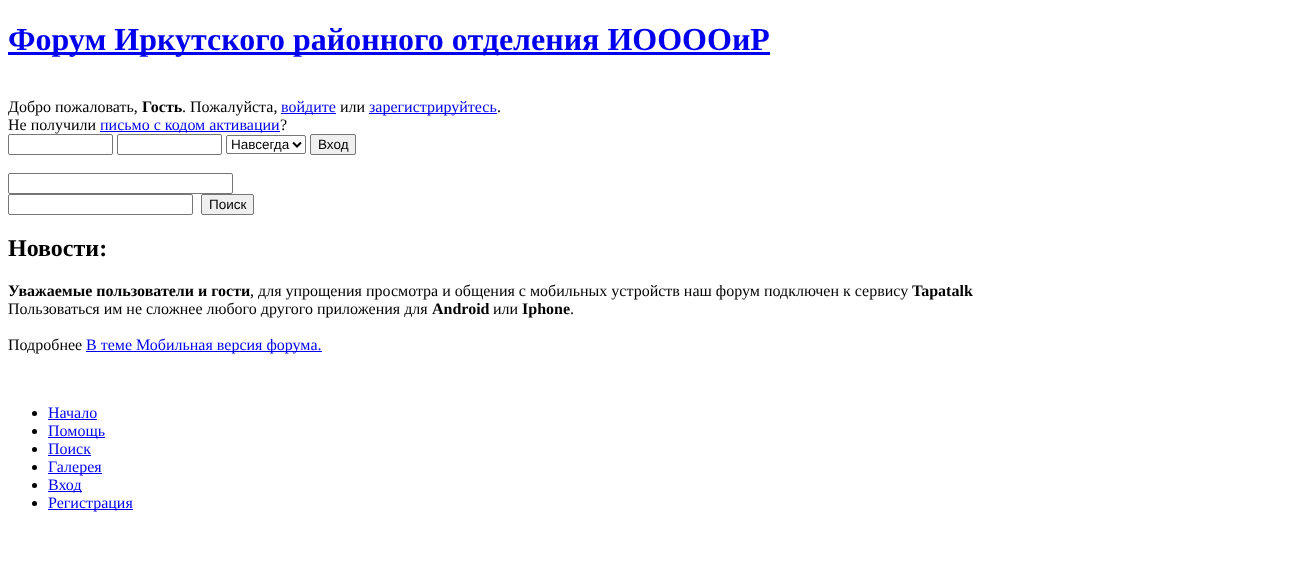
async function draw(canvas) {
  canvas.width = 1312
  canvas.height = 564
  const ctx = canvas.getContext('2d')
  ctx.miterLimit = 4
  ctx.fontKerning = 'normal'

  ctx.fillStyle = '#fff'
  ctx.fillRect(0, 0, 1312, 564)
  ctx.fillStyle = '#00e'
  ctx.fillRect(8, 52, 762, 3)
  ctx.font = 'bold 32px Liberation Serif'
  ctx.fillText('Форум Иркутского районного отделения ИООООиР', 8, 50)
  ctx.font = '16px Liberation Serif'
  ctx.fillStyle = '#000'
  ctx.fillText('Добро пожаловать,', 8, 112)
  ctx.font = 'bold 16px Liberation Serif'
  ctx.fillText('Гость', 142, 112)
  ctx.font = '16px Liberation Serif'
  ctx.fillText('. Пожалуйста,', 182, 112)
  ctx.fillStyle = '#00e'
  ctx.fillRect(281, 113, 55, 1)
  ctx.fillText('войдите', 281, 112)
  ctx.fillStyle = '#000'
  ctx.fillText('или', 340, 112)
  ctx.fillStyle = '#00e'
  ctx.fillRect(369, 113, 128, 1)
  ctx.fillText('зарегистрируйтесь', 369, 112)
  ctx.fillStyle = '#000'
  ctx.fillText('.', 497, 112)
  ctx.fillText('Не получили', 8, 130)
  ctx.fillStyle = '#00e'
  ctx.fillRect(100, 131, 180, 1)
  ctx.fillText('письмо с кодом активации', 100, 130)
  ctx.fillStyle = '#000'
  ctx.fillText('?', 280, 130)
  ctx.beginPath()
  ctx.roundRect(8.5, 134.5, 104, 20, 1.5)
  ctx.strokeStyle = '#767676'
  ctx.stroke()
  ctx.beginPath()
  ctx.roundRect(117.5, 134.5, 104, 20, 1.5)
  ctx.stroke()
  ctx.beginPath()
  ctx.roundRect(226.5, 135.5, 79, 18, 1.5)
  ctx.stroke()
  ctx.beginPath()
  ctx.moveTo(293, 142.5)
  ctx.lineTo(297, 146.5)
  ctx.lineTo(301, 142.5)
  ctx.strokeStyle = '#000'
  ctx.lineWidth = 2
  ctx.stroke()
  ctx.font = '13.5px Liberation Sans'
  ctx.fillText('Навсегда', 231, 149)
  ctx.fillStyle = '#efefef'
  ctx.beginPath()
  ctx.roundRect(310.5, 134.5, 45, 20, 1.5)
  ctx.fill()
  ctx.strokeStyle = '#767676'
  ctx.lineWidth = 1
  ctx.stroke()
  ctx.fillStyle = '#000'
  ctx.fillText('Вход', 318, 149)
  ctx.beginPath()
  ctx.roundRect(8.5, 173.5, 224, 20, 1.5)
  ctx.stroke()
  ctx.beginPath()
  ctx.roundRect(8.5, 194.5, 184, 20, 1.5)
  ctx.stroke()
  ctx.fillStyle = '#efefef'
  ctx.beginPath()
  ctx.roundRect(201.5, 194.5, 52, 20, 1.5)
  ctx.fill()
  ctx.stroke()
  ctx.fillStyle = '#000'
  ctx.fillText('Поиск', 209, 209)
  ctx.font = 'bold 24px Liberation Serif'
  ctx.fillText('Новости:', 8, 256)
  ctx.font = 'bold 16px Liberation Serif'
  ctx.fillText('Уважаемые пользователи и гости', 8, 296)
  ctx.font = '16px Liberation Serif'
  ctx.fillText(', для упрощения просмотра и общения с мобильных устройств наш форум подключен к сервису', 250, 296)
  ctx.font = 'bold 16px Liberation Serif'
  ctx.fillText('Tapatalk', 912, 296)
  ctx.font = '16px Liberation Serif'
  ctx.fillText('Пользоваться им не сложнее любого другого приложения для', 8, 314)
  ctx.font = 'bold 16px Liberation Serif'
  ctx.fillText('Android', 432, 314)
  ctx.font = '16px Liberation Serif'
  ctx.fillText('или', 493, 314)
  ctx.font = 'bold 16px Liberation Serif'
  ctx.fillText('Iphone', 522, 314)
  ctx.font = '16px Liberation Serif'
  ctx.fillText('.', 570, 314)
  ctx.fillText('Подробнее', 8, 350)
  ctx.fillStyle = '#00e'
  ctx.fillRect(86, 351, 236, 1)
  ctx.fillText('В теме Мобильная версия форума.', 86, 350)
  ctx.fillStyle = '#000'
  ctx.beginPath()
  ctx.arc(34.5, 413.5, 2.5, 0, 2 * Math.PI)
  ctx.fill()
  ctx.fillStyle = '#00e'
  ctx.fillText('Начало', 48, 418)
  ctx.fillRect(48, 419, 49, 1)
  ctx.fillStyle = '#000'
  ctx.beginPath()
  ctx.arc(34.5, 431.5, 2.5, 0, 2 * Math.PI)
  ctx.fill()
  ctx.fillStyle = '#00e'
  ctx.fillRect(48, 437, 57, 1)
  ctx.fillText('Помощь', 48, 436)
  ctx.fillStyle = '#000'
  ctx.beginPath()
  ctx.arc(34.5, 449.5, 2.5, 0, 2 * Math.PI)
  ctx.fill()
  ctx.fillStyle = '#00e'
  ctx.fillText('Поиск', 48, 454)
  ctx.fillRect(48, 455, 43, 1)
  ctx.fillStyle = '#000'
  ctx.beginPath()
  ctx.arc(34.5, 467.5, 2.5, 0, 2 * Math.PI)
  ctx.fill()
  ctx.fillStyle = '#00e'
  ctx.fillRect(48, 473, 54, 1)
  ctx.fillText('Галерея', 48, 472)
  ctx.fillStyle = '#000'
  ctx.beginPath()
  ctx.arc(34.5, 485.5, 2.5, 0, 2 * Math.PI)
  ctx.fill()
  ctx.fillStyle = '#00e'
  ctx.fillRect(48, 491, 34, 1)
  ctx.fillText('Вход', 48, 490)
  ctx.fillStyle = '#000'
  ctx.beginPath()
  ctx.arc(34.5, 503.5, 2.5, 0, 2 * Math.PI)
  ctx.fill()
  ctx.fillStyle = '#00e'
  ctx.fillRect(48, 509, 85, 1)
  ctx.fillText('Регистрация', 48, 508)
}

draw(document.querySelector('canvas'))
